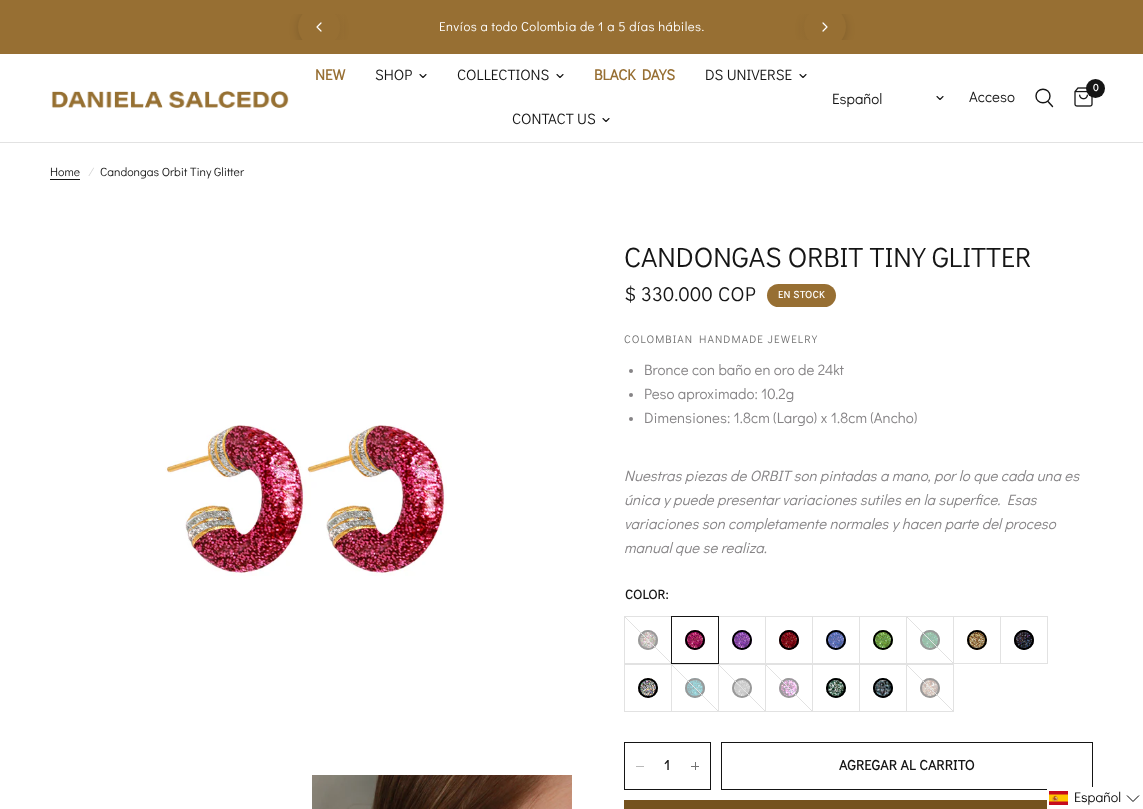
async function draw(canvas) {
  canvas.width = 1143
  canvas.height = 809
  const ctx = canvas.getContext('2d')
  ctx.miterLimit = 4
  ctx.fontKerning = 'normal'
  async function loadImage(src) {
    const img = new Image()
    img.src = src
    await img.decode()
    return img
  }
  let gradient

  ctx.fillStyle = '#fff'
  ctx.fillRect(0, 0, 1143, 809)
  ctx.fillStyle = '#976f33'
  ctx.fillRect(0, 0, 1143, 54)
  ctx.save()
  ctx.beginPath()
  ctx.rect(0, 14, 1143, 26)
  ctx.clip()
  ctx.fillStyle = '#00000026'
  ctx.filter = 'blur(5px)'
  ctx.beginPath()
  ctx.roundRect(298, 8, 42, 42, 21)
  ctx.fill()
  ctx.filter = 'none'
  ctx.restore()
  ctx.save()
  ctx.beginPath()
  ctx.rect(0, 14, 1143, 26)
  ctx.clip()
  ctx.beginPath()
  ctx.arc(319, 27, 21, 0, 2 * Math.PI)
  ctx.fill()
  ctx.restore()
  ctx.beginPath()
  ctx.moveTo(321, 23)
  ctx.lineTo(317, 27)
  ctx.lineTo(321, 31)
  ctx.strokeStyle = '#fff'
  ctx.lineWidth = 1.2
  ctx.lineCap = 'round'
  ctx.lineJoin = 'round'
  ctx.stroke()
  gradient = ctx.createLinearGradient(372, 27, 322, 27)
  gradient.addColorStop(0, '#976f3300')
  gradient.addColorStop(1, '#976f33')
  ctx.fillStyle = gradient
  ctx.fillRect(336, 14, 8, 26)
  ctx.letterSpacing = '0.4px'
  ctx.font = '13px Didact Gothic'
  ctx.fillStyle = '#fff'
  ctx.fillText('Envíos a todo Colombia de 1 a 5 días hábiles.', 439, 31)
  ctx.save()
  ctx.beginPath()
  ctx.rect(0, 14, 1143, 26)
  ctx.clip()
  ctx.fillStyle = '#00000026'
  ctx.filter = 'blur(5px)'
  ctx.beginPath()
  ctx.roundRect(804, 8, 42, 42, 21)
  ctx.fill()
  ctx.filter = 'none'
  ctx.restore()
  ctx.save()
  ctx.beginPath()
  ctx.rect(0, 14, 1143, 26)
  ctx.clip()
  ctx.fillStyle = '#976f33'
  ctx.beginPath()
  ctx.arc(825, 27, 21, 0, 2 * Math.PI)
  ctx.fill()
  ctx.restore()
  gradient = ctx.createLinearGradient(772, 27, 822, 27)
  gradient.addColorStop(0, '#976f3300')
  gradient.addColorStop(1, '#976f33')
  ctx.fillStyle = gradient
  ctx.fillRect(800, 14, 8, 26)
  ctx.beginPath()
  ctx.moveTo(823, 23)
  ctx.lineTo(827, 27)
  ctx.lineTo(823, 31)
  ctx.stroke()
  ctx.fillStyle = '#e2e2e2'
  ctx.fillRect(0, 142, 1143, 1)
  ctx.drawImage(await loadImage('image0.png'), 51, 91, 238, 17)
  ctx.letterSpacing = '0px'
  ctx.font = 'bold 15px Didact Gothic'
  ctx.fillStyle = '#976f33'
  ctx.fillText('NEW', 315, 80)
  ctx.font = '15px Didact Gothic'
  ctx.fillStyle = '#151515'
  ctx.fillText('SHOP', 375, 80)
  ctx.beginPath()
  ctx.moveTo(426, 74.5)
  ctx.lineTo(423, 77.5)
  ctx.lineTo(420, 74.5)
  ctx.strokeStyle = '#151515'
  ctx.lineWidth = 1.1
  ctx.stroke()
  ctx.fillText('COLLECTIONS', 457, 80)
  ctx.beginPath()
  ctx.moveTo(563, 74.5)
  ctx.lineTo(560, 77.5)
  ctx.lineTo(557, 74.5)
  ctx.stroke()
  ctx.font = 'bold 15px Didact Gothic'
  ctx.fillStyle = '#976f33'
  ctx.fillText('BLACK DAYS', 594, 80)
  ctx.font = '15px Didact Gothic'
  ctx.fillStyle = '#151515'
  ctx.fillText('DS UNIVERSE', 705, 80)
  ctx.beginPath()
  ctx.moveTo(806, 74.5)
  ctx.lineTo(803, 77.5)
  ctx.lineTo(800, 74.5)
  ctx.stroke()
  ctx.fillText('CONTACT US', 512, 124)
  ctx.beginPath()
  ctx.moveTo(609, 118.5)
  ctx.lineTo(606, 121.5)
  ctx.lineTo(603, 118.5)
  ctx.stroke()
  ctx.fillText('Español', 832, 104)
  ctx.beginPath()
  ctx.moveTo(943, 96.5)
  ctx.lineTo(940, 99.5)
  ctx.lineTo(937, 96.5)
  ctx.stroke()
  ctx.fillText('Acceso', 969, 102)
  ctx.beginPath()
  ctx.moveTo(1048, 101.5)
  ctx.lineTo(1052.5, 106.5)
  ctx.moveTo(1050, 96)
  ctx.bezierCurveTo(1050, 105, 1036, 105, 1036, 96)
  ctx.bezierCurveTo(1036, 87, 1050, 87, 1050, 96)
  ctx.closePath()
  ctx.lineWidth = 1.4
  ctx.stroke()
  ctx.drawImage(await loadImage('image1.png'), 1074, 87, 19, 20)
  ctx.beginPath()
  ctx.arc(1095.5, 88.5, 9.5, 0, 2 * Math.PI)
  ctx.fill()
  ctx.font = 'bold 10px Didact Gothic'
  ctx.fillStyle = '#fff'
  ctx.fillText('0', 1093, 91)
  ctx.font = '12px Didact Gothic'
  ctx.fillStyle = '#151515'
  ctx.fillText('Home', 50, 176)
  ctx.fillRect(50, 179, 30, 1)
  ctx.font = 'italic 12px Didact Gothic'
  ctx.fillStyle = '#d0d0d0'
  ctx.fillText('/', 88, 176)
  ctx.font = '12px Didact Gothic'
  ctx.fillStyle = '#151515'
  ctx.fillText('Candongas Orbit Tiny Glitter', 100, 176)
  ctx.drawImage(await loadImage('image2.png'), 165, 425, 282, 151)
  ctx.drawImage(await loadImage('image3.png'), 312, 775, 260, 34)
  ctx.font = '28px Didact Gothic'
  ctx.fillText('CANDONGAS ORBIT TINY GLITTER', 624, 267)
  ctx.letterSpacing = '0.4px'
  ctx.font = '20px Didact Gothic'
  ctx.fillText('$ 330.000 COP', 624, 301)
  ctx.fillStyle = '#976f33'
  ctx.beginPath()
  ctx.roundRect(767, 284, 69, 23, 11.5)
  ctx.fill()
  ctx.letterSpacing = '0.5px'
  ctx.font = 'bold 10px Didact Gothic'
  ctx.fillStyle = '#fff'
  ctx.fillText('EN STOCK', 778, 298)
  ctx.letterSpacing = '1.1px'
  ctx.font = '11px Didact Gothic'
  ctx.fillStyle = '#737373'
  ctx.fillText('COLOMBIAN HANDMADE JEWELRY', 624, 343)
  ctx.fillStyle = '#868486'
  ctx.beginPath()
  ctx.arc(631, 371, 2, 0, 2 * Math.PI)
  ctx.fill()
  ctx.letterSpacing = '0px'
  ctx.font = '15px Didact Gothic'
  ctx.fillText('Bronce con baño en oro de 24kt', 644, 375)
  ctx.beginPath()
  ctx.arc(631, 395, 2, 0, 2 * Math.PI)
  ctx.fill()
  ctx.fillText('Peso aproximado: 10.2g', 644, 399)
  ctx.beginPath()
  ctx.arc(631, 419, 2, 0, 2 * Math.PI)
  ctx.fill()
  ctx.fillText('Dimensiones: 1.8cm (Largo) x 1.8cm (Ancho)', 644, 423)
  ctx.font = 'italic 15px Didact Gothic'
  ctx.fillText('Nuestras piezas de ORBIT son pintadas a mano, por lo que cada una es', 624, 481)
  ctx.fillText('única y puede presentar variaciones sutiles en la superfice. Esas', 624, 505)
  ctx.fillText('variaciones son completamente normales y hacen parte del proceso', 624, 529)
  ctx.fillText('manual que se realiza.', 624, 553)
  ctx.letterSpacing = '0.25px'
  ctx.font = 'bold 13px Didact Gothic'
  ctx.fillStyle = '#151515'
  ctx.fillText('COLOR:', 625, 599)
  ctx.strokeStyle = '#e2e2e2'
  ctx.lineWidth = 1
  ctx.lineJoin = 'miter'
  ctx.strokeRect(624.5, 616.5, 47, 47)
  ctx.drawImage(await loadImage('image4.png'), 638, 630, 20, 20)
  ctx.beginPath()
  ctx.arc(648, 640, 9, 0, 2 * Math.PI)
  ctx.strokeStyle = '#999'
  ctx.lineWidth = 2
  ctx.stroke()
  gradient = ctx.createLinearGradient(672, 616, 624, 664)
  gradient.addColorStop(0.49, '#e2e2e200')
  gradient.addColorStop(0.5, '#e2e2e2')
  gradient.addColorStop(0.51, '#e2e2e200')
  ctx.fillStyle = gradient
  ctx.fillRect(625, 617, 46, 46)
  ctx.strokeStyle = '#e2e2e2'
  ctx.lineWidth = 1
  ctx.strokeRect(718.5, 616.5, 47, 47)
  ctx.strokeStyle = '#151515'
  ctx.strokeRect(671.5, 616.5, 47, 47)
  ctx.drawImage(await loadImage('image5.png'), 685, 630, 20, 20)
  ctx.beginPath()
  ctx.arc(695, 640, 9, 0, 2 * Math.PI)
  ctx.strokeStyle = '#000'
  ctx.lineWidth = 2
  ctx.stroke()
  ctx.drawImage(await loadImage('image6.png'), 732, 630, 20, 20)
  ctx.beginPath()
  ctx.arc(742, 640, 9, 0, 2 * Math.PI)
  ctx.stroke()
  ctx.strokeStyle = '#e2e2e2'
  ctx.lineWidth = 1
  ctx.strokeRect(765.5, 616.5, 47, 47)
  ctx.drawImage(await loadImage('image7.png'), 779, 630, 20, 20)
  ctx.beginPath()
  ctx.arc(789, 640, 9, 0, 2 * Math.PI)
  ctx.strokeStyle = '#000'
  ctx.lineWidth = 2
  ctx.stroke()
  ctx.strokeStyle = '#e2e2e2'
  ctx.lineWidth = 1
  ctx.strokeRect(812.5, 616.5, 47, 47)
  ctx.drawImage(await loadImage('image8.png'), 826, 630, 20, 20)
  ctx.beginPath()
  ctx.arc(836, 640, 9, 0, 2 * Math.PI)
  ctx.strokeStyle = '#000'
  ctx.lineWidth = 2
  ctx.stroke()
  ctx.strokeStyle = '#e2e2e2'
  ctx.lineWidth = 1
  ctx.strokeRect(859.5, 616.5, 47, 47)
  ctx.drawImage(await loadImage('image9.png'), 873, 630, 20, 20)
  ctx.beginPath()
  ctx.arc(883, 640, 9, 0, 2 * Math.PI)
  ctx.strokeStyle = '#000'
  ctx.lineWidth = 2
  ctx.stroke()
  ctx.strokeStyle = '#e2e2e2'
  ctx.lineWidth = 1
  ctx.strokeRect(906.5, 616.5, 47, 47)
  ctx.drawImage(await loadImage('image10.png'), 920, 630, 20, 20)
  ctx.beginPath()
  ctx.arc(930, 640, 9, 0, 2 * Math.PI)
  ctx.strokeStyle = '#999'
  ctx.lineWidth = 2
  ctx.stroke()
  gradient = ctx.createLinearGradient(954, 616, 906, 664)
  gradient.addColorStop(0.49, '#e2e2e200')
  gradient.addColorStop(0.5, '#e2e2e2')
  gradient.addColorStop(0.51, '#e2e2e200')
  ctx.fillStyle = gradient
  ctx.fillRect(907, 617, 46, 46)
  ctx.strokeStyle = '#e2e2e2'
  ctx.lineWidth = 1
  ctx.strokeRect(953.5, 616.5, 47, 47)
  ctx.drawImage(await loadImage('image11.png'), 967, 630, 20, 20)
  ctx.beginPath()
  ctx.arc(977, 640, 9, 0, 2 * Math.PI)
  ctx.strokeStyle = '#000'
  ctx.lineWidth = 2
  ctx.stroke()
  ctx.strokeStyle = '#e2e2e2'
  ctx.lineWidth = 1
  ctx.strokeRect(1000.5, 616.5, 47, 47)
  ctx.drawImage(await loadImage('image12.png'), 1014, 630, 20, 20)
  ctx.beginPath()
  ctx.arc(1024, 640, 9, 0, 2 * Math.PI)
  ctx.strokeStyle = '#000'
  ctx.lineWidth = 2
  ctx.stroke()
  ctx.strokeStyle = '#e2e2e2'
  ctx.lineWidth = 1
  ctx.strokeRect(624.5, 664.5, 47, 47)
  ctx.drawImage(await loadImage('image13.png'), 638, 678, 20, 20)
  ctx.beginPath()
  ctx.arc(648, 688, 9, 0, 2 * Math.PI)
  ctx.strokeStyle = '#000'
  ctx.lineWidth = 2
  ctx.stroke()
  ctx.strokeStyle = '#e2e2e2'
  ctx.lineWidth = 1
  ctx.strokeRect(671.5, 664.5, 47, 47)
  ctx.drawImage(await loadImage('image14.png'), 685, 678, 20, 20)
  ctx.beginPath()
  ctx.arc(695, 688, 9, 0, 2 * Math.PI)
  ctx.strokeStyle = '#999'
  ctx.lineWidth = 2
  ctx.stroke()
  gradient = ctx.createLinearGradient(719, 664, 671, 712)
  gradient.addColorStop(0.49, '#e2e2e200')
  gradient.addColorStop(0.5, '#e2e2e2')
  gradient.addColorStop(0.51, '#e2e2e200')
  ctx.fillStyle = gradient
  ctx.fillRect(672, 665, 46, 46)
  ctx.strokeStyle = '#e2e2e2'
  ctx.lineWidth = 1
  ctx.strokeRect(718.5, 664.5, 47, 47)
  ctx.drawImage(await loadImage('image15.png'), 732, 678, 20, 20)
  ctx.beginPath()
  ctx.arc(742, 688, 9, 0, 2 * Math.PI)
  ctx.strokeStyle = '#999'
  ctx.lineWidth = 2
  ctx.stroke()
  gradient = ctx.createLinearGradient(766, 664, 718, 712)
  gradient.addColorStop(0.49, '#e2e2e200')
  gradient.addColorStop(0.5, '#e2e2e2')
  gradient.addColorStop(0.51, '#e2e2e200')
  ctx.fillStyle = gradient
  ctx.fillRect(719, 665, 46, 46)
  ctx.strokeStyle = '#e2e2e2'
  ctx.lineWidth = 1
  ctx.strokeRect(765.5, 664.5, 47, 47)
  ctx.drawImage(await loadImage('image16.png'), 779, 678, 20, 20)
  ctx.beginPath()
  ctx.arc(789, 688, 9, 0, 2 * Math.PI)
  ctx.strokeStyle = '#999'
  ctx.lineWidth = 2
  ctx.stroke()
  gradient = ctx.createLinearGradient(813, 664, 765, 712)
  gradient.addColorStop(0.49, '#e2e2e200')
  gradient.addColorStop(0.5, '#e2e2e2')
  gradient.addColorStop(0.51, '#e2e2e200')
  ctx.fillStyle = gradient
  ctx.fillRect(766, 665, 46, 46)
  ctx.strokeStyle = '#e2e2e2'
  ctx.lineWidth = 1
  ctx.strokeRect(812.5, 664.5, 47, 47)
  ctx.drawImage(await loadImage('image17.png'), 826, 678, 20, 20)
  ctx.beginPath()
  ctx.arc(836, 688, 9, 0, 2 * Math.PI)
  ctx.strokeStyle = '#000'
  ctx.lineWidth = 2
  ctx.stroke()
  ctx.strokeStyle = '#e2e2e2'
  ctx.lineWidth = 1
  ctx.strokeRect(859.5, 664.5, 47, 47)
  ctx.drawImage(await loadImage('image18.png'), 873, 678, 20, 20)
  ctx.beginPath()
  ctx.arc(883, 688, 9, 0, 2 * Math.PI)
  ctx.strokeStyle = '#000'
  ctx.lineWidth = 2
  ctx.stroke()
  ctx.strokeStyle = '#e2e2e2'
  ctx.lineWidth = 1
  ctx.strokeRect(906.5, 664.5, 47, 47)
  ctx.drawImage(await loadImage('image19.png'), 920, 678, 20, 20)
  ctx.beginPath()
  ctx.arc(930, 688, 9, 0, 2 * Math.PI)
  ctx.strokeStyle = '#999'
  ctx.lineWidth = 2
  ctx.stroke()
  gradient = ctx.createLinearGradient(954, 664, 906, 712)
  gradient.addColorStop(0.49, '#e2e2e200')
  gradient.addColorStop(0.5, '#e2e2e2')
  gradient.addColorStop(0.51, '#e2e2e200')
  ctx.fillStyle = gradient
  ctx.fillRect(907, 665, 46, 46)
  ctx.strokeStyle = '#151515'
  ctx.lineWidth = 1
  ctx.strokeRect(624.5, 742.5, 86, 47)
  ctx.fillStyle = '#b9b9b9'
  ctx.fillRect(636, 766, 8, 1)
  ctx.letterSpacing = '0px'
  ctx.font = 'bold 14px Didact Gothic'
  ctx.fillStyle = '#151515'
  ctx.fillText('1', 664, 770)
  ctx.fillStyle = '#737373'
  ctx.fillRect(695, 762, 1, 8)
  ctx.fillRect(691, 766, 8, 1)
  ctx.strokeRect(721.5, 742.5, 371, 47)
  ctx.letterSpacing = '0.25px'
  ctx.fillStyle = '#151515'
  ctx.fillText('AGREGAR AL CARRITO', 839, 770)
  ctx.fillStyle = '#75521e'
  ctx.fillRect(624, 800, 423, 9)
  ctx.fillStyle = '#fff'
  ctx.fillRect(1047, 787, 46, 3)
  ctx.drawImage(await loadImage('image20.png'), 1049, 791, 19, 14)
  ctx.letterSpacing = '0px'
  ctx.font = '14px Didact Gothic'
  ctx.fillStyle = '#000'
  ctx.fillText('Español', 1074, 802)
  ctx.beginPath()
  ctx.moveTo(1127, 795.5)
  ctx.lineTo(1133, 801.5)
  ctx.lineTo(1139, 795.5)
  ctx.strokeStyle = '#000'
  ctx.lineCap = 'butt'
  ctx.stroke()
}

draw(document.querySelector('canvas'))
